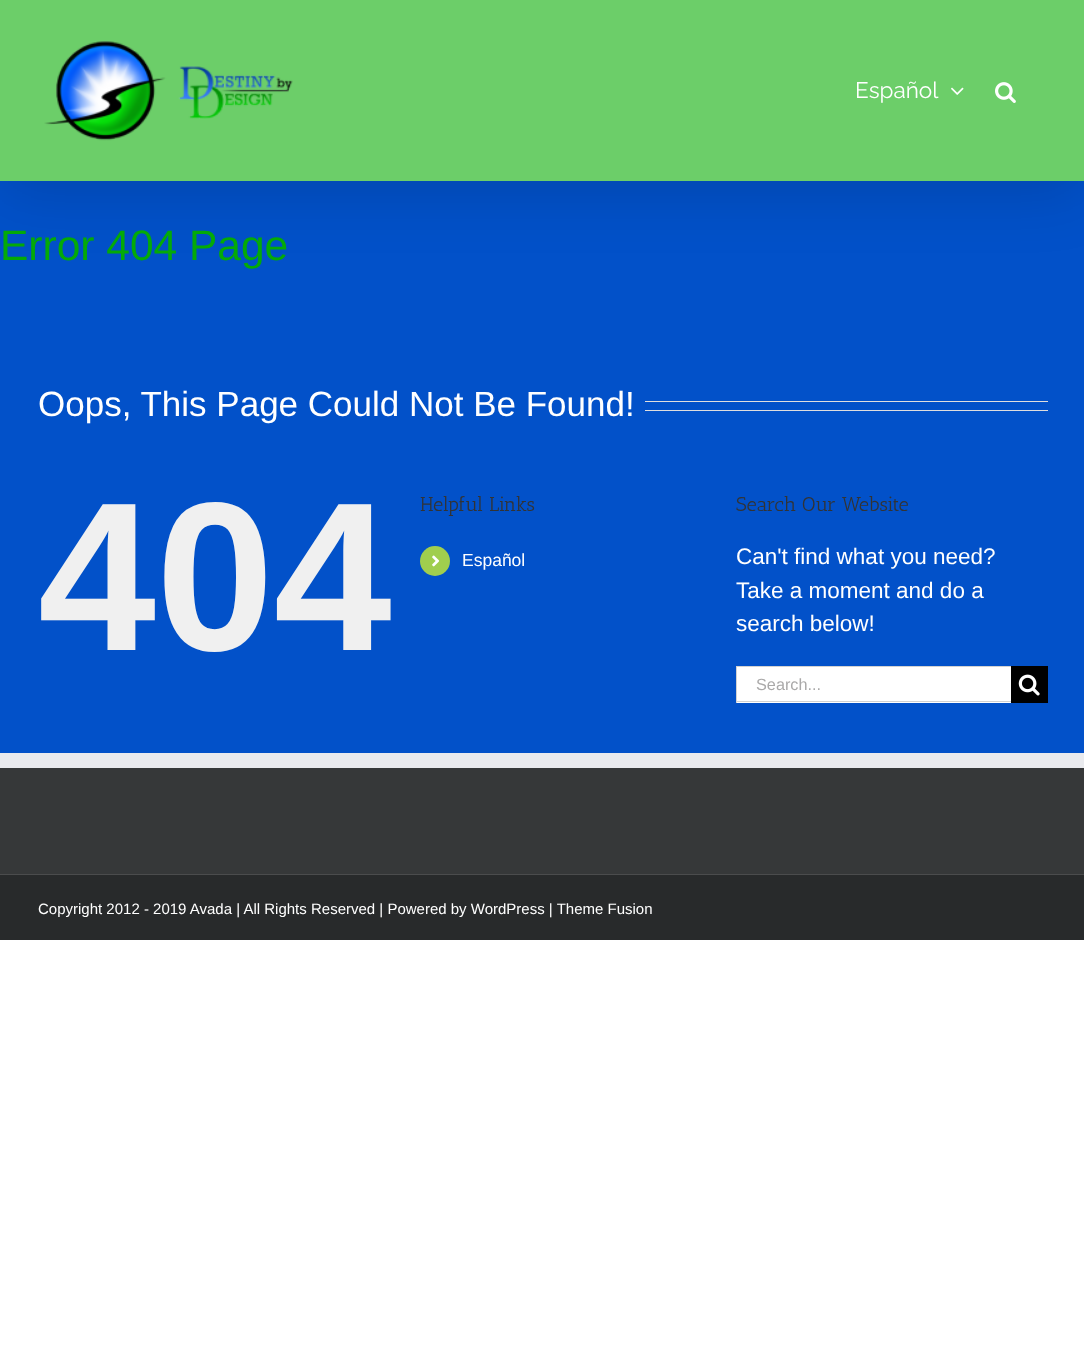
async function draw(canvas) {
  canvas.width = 1084
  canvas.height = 1347
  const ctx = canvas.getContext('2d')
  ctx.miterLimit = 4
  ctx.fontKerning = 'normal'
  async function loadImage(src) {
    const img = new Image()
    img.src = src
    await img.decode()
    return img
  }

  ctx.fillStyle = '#fff'
  ctx.fillRect(0, 0, 1084, 1347)
  ctx.fillStyle = '#0251c9'
  ctx.fillRect(0, 181, 1084, 572)
  ctx.fillStyle = '#00000024'
  ctx.filter = 'blur(31px)'
  ctx.beginPath()
  ctx.rect(3, 15, 1080, 176)
  ctx.fill()
  ctx.filter = 'none'
  ctx.fillStyle = '#6cce69'
  ctx.fillRect(0, 0, 1084, 181)
  ctx.drawImage(await loadImage('image0.png'), 44, 41, 249, 100)
  ctx.font = '22.5px Raleway'
  ctx.fillStyle = '#fff'
  ctx.fillText('Español', 855, 98)
  ctx.drawImage(await loadImage('image1.png'), 951, 87, 13, 8)
  ctx.drawImage(await loadImage('image2.png'), 995, 82, 21, 21)
  ctx.font = '42.5px Liberation Sans'
  ctx.fillStyle = '#04aa08'
  ctx.fillText('Error 404 Page', 0, 260)
  ctx.font = '35px Liberation Sans'
  ctx.fillStyle = '#fff'
  ctx.fillText('Oops, This Page Could Not Be Found!', 38, 416)
  ctx.fillStyle = '#e0dede'
  ctx.fillRect(645, 401, 403, 1)
  ctx.fillRect(645, 410, 403, 1)
  ctx.font = 'bold 212px Liberation Sans'
  ctx.fillStyle = '#f0f0f0'
  ctx.fillText('404', 38, 650)
  ctx.font = '20px Antic Slab'
  ctx.fillStyle = '#333'
  ctx.fillText('Helpful Links', 420, 511)
  ctx.fillStyle = '#a0ce4e'
  ctx.beginPath()
  ctx.arc(435, 561, 15, 0, 2 * Math.PI)
  ctx.fill()
  ctx.drawImage(await loadImage('image3.png'), 432, 555, 8, 12)
  ctx.font = '17.5px Liberation Sans'
  ctx.fillStyle = '#fff'
  ctx.fillText('Español', 462, 566)
  ctx.font = '20px Antic Slab'
  ctx.fillStyle = '#333'
  ctx.fillText('Search Our Website', 736, 511)
  ctx.font = '22.5px Liberation Sans'
  ctx.fillStyle = '#fff'
  ctx.fillText('Can\'t find what you need?', 736, 564)
  ctx.fillText('Take a moment and do a', 736, 598)
  ctx.fillText('search below!', 736, 631)
  ctx.fillRect(737, 667, 274, 36)
  ctx.fillStyle = '#d2d2d2'
  ctx.fillRect(736, 666, 275, 1)
  ctx.fillRect(736, 701, 275, 1)
  ctx.fillRect(736, 666, 1, 37)
  ctx.font = '16.25px Liberation Sans'
  ctx.fillStyle = '#aaa9a9'
  ctx.fillText('Search...', 756, 690)
  ctx.fillStyle = '#000'
  ctx.fillRect(1011, 666, 37, 37)
  ctx.drawImage(await loadImage('image4.png'), 1018, 674, 22, 22)
  ctx.fillStyle = '#363839'
  ctx.fillRect(0, 768, 1084, 106)
  ctx.fillStyle = '#e9eaee'
  ctx.fillRect(0, 753, 1084, 15)
  ctx.fillStyle = '#282a2b'
  ctx.fillRect(0, 875, 1084, 65)
  ctx.fillStyle = '#4b4c4d'
  ctx.fillRect(0, 874, 1084, 1)
  ctx.font = '15px Liberation Sans'
  ctx.fillStyle = '#fff'
  ctx.fillText('Copyright 2012 - 2019 Avada | All Rights Reserved | Powered by WordPress | Theme Fusion', 38, 914)
}

draw(document.querySelector('canvas'))
